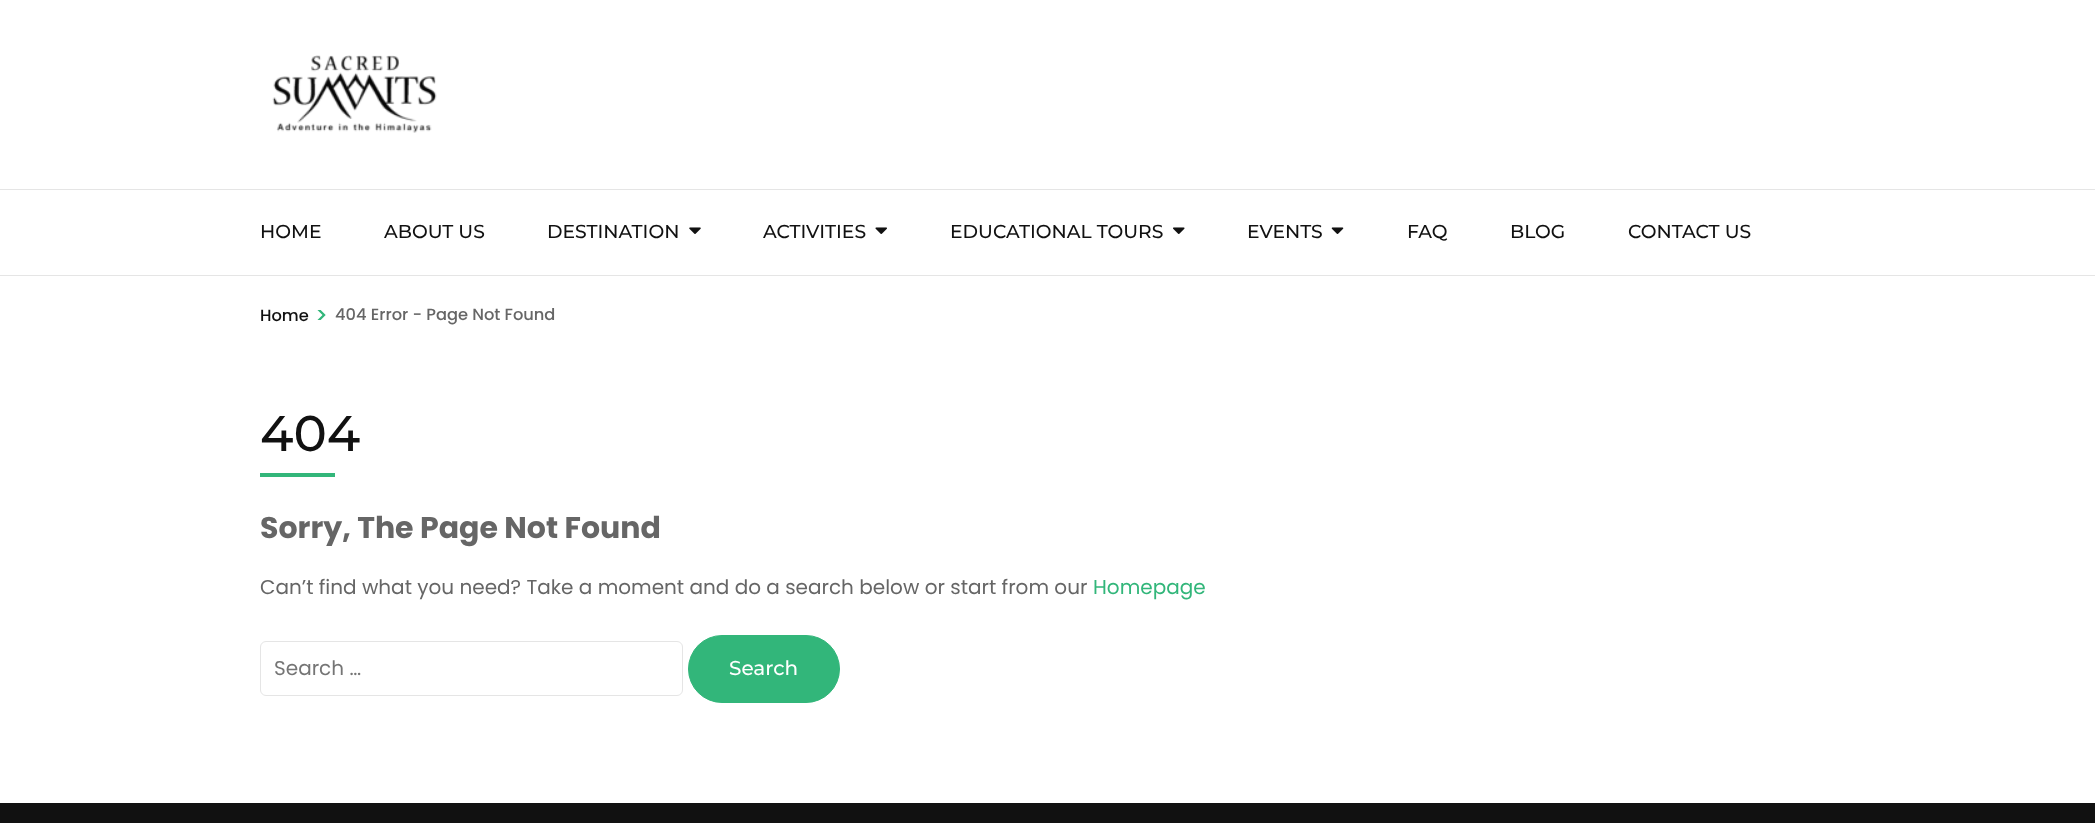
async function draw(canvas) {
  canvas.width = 2095
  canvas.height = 823
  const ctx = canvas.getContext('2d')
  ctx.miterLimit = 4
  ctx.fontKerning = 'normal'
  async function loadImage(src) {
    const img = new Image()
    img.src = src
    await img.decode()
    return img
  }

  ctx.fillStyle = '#fff'
  ctx.fillRect(0, 0, 2095, 823)
  ctx.drawImage(await loadImage('image0.png'), 272, 55, 165, 78)
  ctx.fillStyle = '#e5e5e5'
  ctx.fillRect(0, 189, 2095, 1)
  ctx.fillRect(0, 275, 2095, 1)
  ctx.font = '500 18.75px Montserrat'
  ctx.fillStyle = '#111'
  ctx.fillText('HOME', 260, 238)
  ctx.fillText('ABOUT US', 384, 238)
  ctx.fillText('DESTINATION', 547, 238)
  ctx.drawImage(await loadImage('image1.png'), 689, 227, 12, 7)
  ctx.fillText('ACTIVITIES', 763, 238)
  ctx.drawImage(await loadImage('image2.png'), 875, 227, 12, 7)
  ctx.fillText('EDUCATIONAL TOURS', 950, 238)
  ctx.drawImage(await loadImage('image3.png'), 1173, 227, 12, 7)
  ctx.fillText('EVENTS', 1247, 238)
  ctx.drawImage(await loadImage('image4.png'), 1331, 227, 13, 7)
  ctx.fillText('FAQ', 1407, 238)
  ctx.fillText('BLOG', 1510, 238)
  ctx.fillText('CONTACT US', 1628, 238)
  ctx.font = '500 16.25px Poppins'
  ctx.fillText('Home', 260, 321)
  ctx.font = '500 22px Poppins'
  ctx.fillStyle = '#32b67a'
  ctx.fillText('>', 315, 323)
  ctx.font = '500 16.25px Poppins'
  ctx.fillStyle = '#666'
  ctx.fillText('404 Error - Page Not Found', 335, 320)
  ctx.font = '500 50px Montserrat'
  ctx.fillStyle = '#111'
  ctx.fillText('404', 260, 451)
  ctx.fillStyle = '#32b67a'
  ctx.fillRect(260, 473, 75, 4)
  ctx.font = 'bold 30px Poppins'
  ctx.fillStyle = '#666'
  ctx.fillText('Sorry, The Page Not Found', 260, 538)
  ctx.font = '20px Poppins'
  ctx.fillText('Can’t find what you need? Take a moment and do a search below or start from our', 260, 594)
  ctx.fillStyle = '#32b67a'
  ctx.fillText('Homepage', 1093, 594)
  ctx.beginPath()
  ctx.roundRect(260.5, 641.5, 422, 54, 5.5)
  ctx.strokeStyle = '#e5e5e5'
  ctx.stroke()
  ctx.fillStyle = '#757575'
  ctx.fillText('Search …', 274, 675)
  ctx.fillStyle = '#32b67a'
  ctx.beginPath()
  ctx.roundRect(688.5, 635.5, 151, 67, 33.5)
  ctx.fill()
  ctx.strokeStyle = '#32b67a'
  ctx.stroke()
  ctx.font = '500 20px Montserrat'
  ctx.fillStyle = '#fff'
  ctx.fillText('Search', 729, 675)
  ctx.fillStyle = '#111'
  ctx.fillRect(0, 803, 2095, 20)
}

draw(document.querySelector('canvas'))
